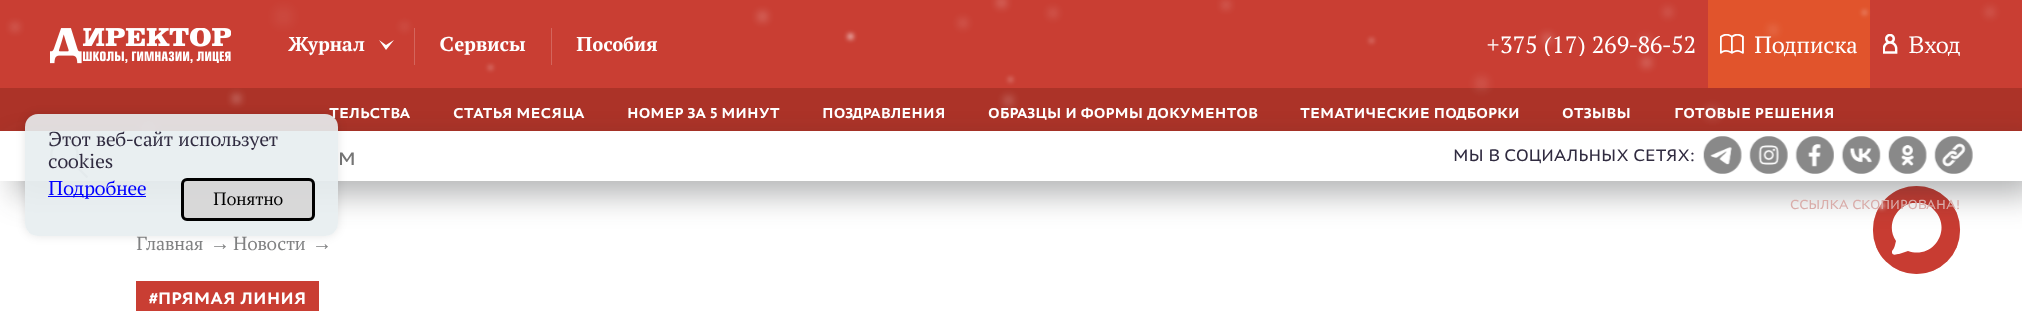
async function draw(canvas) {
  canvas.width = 2022
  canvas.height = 311
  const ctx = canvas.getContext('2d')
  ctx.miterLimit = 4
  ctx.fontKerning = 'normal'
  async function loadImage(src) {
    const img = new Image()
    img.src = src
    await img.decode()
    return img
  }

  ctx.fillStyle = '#fff'
  ctx.fillRect(0, 0, 2022, 311)
  ctx.fillStyle = '#c93e33'
  ctx.fillRect(0, 0, 2022, 88)
  ctx.fillStyle = '#fff'
  ctx.filter = 'blur(4px)'
  ctx.beginPath()
  ctx.roundRect(13, 25, 4, 4, 2)
  ctx.fill()
  ctx.filter = 'none'
  ctx.filter = 'blur(7.5px)'
  ctx.beginPath()
  ctx.roundRect(281, 14, 5, 5, 2.5)
  ctx.fill()
  ctx.filter = 'none'
  ctx.beginPath()
  ctx.moveTo(386, 50)
  ctx.lineTo(394, 40)
  ctx.lineTo(386, 45)
  ctx.lineTo(379, 40)
  ctx.closePath()
  ctx.fill()
  ctx.fillStyle = '#d4655c'
  ctx.fillRect(414, 28, 1, 37)
  ctx.fillStyle = '#fff'
  ctx.filter = 'blur(4px)'
  ctx.beginPath()
  ctx.roundRect(403, 25, 3, 3, 1.5)
  ctx.fill()
  ctx.filter = 'none'
  ctx.filter = 'blur(5px)'
  ctx.beginPath()
  ctx.roundRect(760, 14, 5, 5, 2.5)
  ctx.fill()
  ctx.filter = 'none'
  ctx.filter = 'blur(2.5px)'
  ctx.beginPath()
  ctx.roundRect(848, 34, 5, 5, 2.5)
  ctx.fill()
  ctx.filter = 'none'
  ctx.filter = 'blur(5px)'
  ctx.beginPath()
  ctx.roundRect(961, 21, 4, 4, 2)
  ctx.fill()
  ctx.filter = 'none'
  ctx.filter = 'blur(5px)'
  ctx.beginPath()
  ctx.roundRect(999, 0, 5, 5, 2.5)
  ctx.fill()
  ctx.filter = 'none'
  ctx.filter = 'blur(5px)'
  ctx.beginPath()
  ctx.roundRect(1051, 11, 4, 4, 2)
  ctx.fill()
  ctx.filter = 'none'
  ctx.filter = 'blur(4px)'
  ctx.beginPath()
  ctx.roundRect(1224, 3, 4, 4, 2)
  ctx.fill()
  ctx.filter = 'none'
  ctx.filter = 'blur(2.5px)'
  ctx.beginPath()
  ctx.roundRect(1370, 39, 3, 3, 1.5)
  ctx.fill()
  ctx.filter = 'none'
  ctx.filter = 'blur(5px)'
  ctx.beginPath()
  ctx.roundRect(1545, 36, 5, 5, 2.5)
  ctx.fill()
  ctx.filter = 'none'
  ctx.filter = 'blur(5px)'
  ctx.beginPath()
  ctx.roundRect(1644, 38, 4, 4, 2)
  ctx.fill()
  ctx.filter = 'none'
  ctx.filter = 'blur(5px)'
  ctx.beginPath()
  ctx.roundRect(1666, 10, 4, 4, 2)
  ctx.fill()
  ctx.filter = 'none'
  ctx.fillStyle = '#e1542c'
  ctx.fillRect(1708, 0, 162, 88)
  ctx.fillStyle = '#fff'
  ctx.filter = 'blur(5px)'
  ctx.beginPath()
  ctx.roundRect(1771, 28, 4, 4, 2)
  ctx.fill()
  ctx.filter = 'none'
  ctx.filter = 'blur(2.5px)'
  ctx.beginPath()
  ctx.roundRect(1863, 11, 3, 3, 1.5)
  ctx.fill()
  ctx.filter = 'none'
  ctx.filter = 'blur(5px)'
  ctx.beginPath()
  ctx.roundRect(1988, 10, 4, 4, 2)
  ctx.fill()
  ctx.filter = 'none'
  ctx.filter = 'blur(2.5px)'
  ctx.beginPath()
  ctx.roundRect(489, 66, 3, 3, 1.5)
  ctx.fill()
  ctx.filter = 'none'
  ctx.fillStyle = '#ac3328'
  ctx.fillRect(0, 88, 2022, 43)
  ctx.fillStyle = '#fff'
  ctx.filter = 'blur(2.5px)'
  ctx.beginPath()
  ctx.roundRect(1009, 78, 3, 3, 1.5)
  ctx.fill()
  ctx.filter = 'none'
  ctx.filter = 'blur(6px)'
  ctx.beginPath()
  ctx.roundRect(1479, 81, 5, 5, 2.5)
  ctx.fill()
  ctx.filter = 'none'
  ctx.filter = 'blur(5px)'
  ctx.beginPath()
  ctx.roundRect(1644, 60, 5, 5, 2.5)
  ctx.fill()
  ctx.filter = 'none'
  ctx.fillStyle = '#c93e33'
  ctx.beginPath()
  ctx.roundRect(1873, 186, 87, 88, 43.5)
  ctx.fill()
  ctx.fillStyle = '#c93e3333'
  ctx.beginPath()
  ctx.roundRect(1873, 186, 87, 88, 43.5)
  ctx.fill()
  ctx.beginPath()
  ctx.roundRect(1873, 186, 87, 88, 43.5)
  ctx.fill()
  ctx.save()
  ctx.beginPath()
  ctx.rect(1891, 203, 52, 52)
  ctx.clip()
  ctx.fillStyle = '#fff'
  ctx.beginPath()
  ctx.moveTo(1892, 251)
  ctx.bezierCurveTo(1892, 252, 1892, 253, 1892, 253)
  ctx.bezierCurveTo(1893, 256, 1897, 254, 1899, 254)
  ctx.lineTo(1908, 251)
  ctx.bezierCurveTo(1933, 260, 1953, 229, 1934, 210)
  ctx.bezierCurveTo(1931, 206, 1926, 204, 1922, 203)
  ctx.bezierCurveTo(1915, 202, 1908, 203, 1903, 207)
  ctx.bezierCurveTo(1892, 214, 1888, 230, 1896, 241)
  ctx.bezierCurveTo(1895, 244, 1895, 248, 1892, 251)
  ctx.closePath()
  ctx.fill()
  ctx.restore()
  ctx.fillStyle = '#23262957'
  ctx.filter = 'blur(15.5px)'
  ctx.beginPath()
  ctx.rect(14, 145, 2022, 50)
  ctx.fill()
  ctx.filter = 'none'
  ctx.fillStyle = '#fff'
  ctx.fillRect(0, 131, 2022, 50)
  ctx.filter = 'blur(6px)'
  ctx.beginPath()
  ctx.roundRect(146, 126, 5, 5, 2.5)
  ctx.fill()
  ctx.filter = 'none'
  ctx.filter = 'blur(4px)'
  ctx.beginPath()
  ctx.roundRect(234, 96, 5, 5, 2.5)
  ctx.fill()
  ctx.filter = 'none'
  ctx.filter = 'blur(5px)'
  ctx.beginPath()
  ctx.roundRect(1006, 98, 5, 5, 2.5)
  ctx.fill()
  ctx.filter = 'none'
  ctx.filter = 'blur(6px)'
  ctx.beginPath()
  ctx.roundRect(1710, 110, 5, 5, 2.5)
  ctx.fill()
  ctx.filter = 'none'
  ctx.filter = 'blur(2.5px)'
  ctx.beginPath()
  ctx.roundRect(1879, 203, 5, 5, 2.5)
  ctx.fill()
  ctx.filter = 'none'
  ctx.drawImage(await loadImage('image0.png'), 50, 28, 181, 36)
  ctx.font = 'bold 21.25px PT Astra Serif'
  ctx.fillText('Журнал', 288, 51)
  ctx.fillText('Сервисы', 439, 51)
  ctx.fillStyle = '#d4655c'
  ctx.fillRect(551, 28, 1, 37)
  ctx.fillStyle = '#fff'
  ctx.fillText('Пособия', 576, 51)
  ctx.save()
  ctx.beginPath()
  ctx.rect(1486, 31, 209, 25)
  ctx.clip()
  ctx.font = '25px PT Astra Serif'
  ctx.fillText('+375 (17) 269-86-52', 1486, 53)
  ctx.restore()
  ctx.drawImage(await loadImage('image1.png'), 1720, 34, 24, 20)
  ctx.font = '25px PT Astra Serif'
  ctx.fillText('Подписка', 1754, 53)
  ctx.drawImage(await loadImage('image2.png'), 1883, 34, 15, 20)
  ctx.save()
  ctx.beginPath()
  ctx.rect(1908, 31, 52, 25)
  ctx.clip()
  ctx.fillText('Вход', 1908, 53)
  ctx.restore()
  ctx.font = 'bold 15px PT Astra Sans'
  ctx.fillText('ТЕЛЬСТВА', 329, 118)
  ctx.fillText('СТАТЬЯ МЕСЯЦА', 453, 118)
  ctx.fillText('НОМЕР ЗА 5 МИНУТ', 627, 118)
  ctx.fillText('ПОЗДРАВЛЕНИЯ', 822, 118)
  ctx.fillText('ОБРАЗЦЫ И ФОРМЫ ДОКУМЕНТОВ', 988, 118)
  ctx.fillText('ТЕМАТИЧЕСКИЕ ПОДБОРКИ', 1300, 118)
  ctx.fillText('ОТЗЫВЫ', 1562, 118)
  ctx.fillText('ГОТОВЫЕ РЕШЕНИЯ', 1674, 118)
  ctx.drawImage(await loadImage('image3.png'), 50, 140, 39, 39)
  ctx.font = '28px PT Astra Sans'
  ctx.fillStyle = '#757575'
  ctx.fillText('м', 338, 165)
  ctx.font = '17.5px PT Astra Sans'
  ctx.fillStyle = '#302b40'
  ctx.fillText('МЫ В СОЦИАЛЬНЫХ СЕТЯХ:', 1453, 161)
  ctx.drawImage(await loadImage('image4.png'), 1703, 136, 39, 38)
  ctx.drawImage(await loadImage('image5.png'), 1749, 136, 39, 38)
  ctx.drawImage(await loadImage('image6.png'), 1795, 136, 39, 38)
  ctx.drawImage(await loadImage('image7.png'), 1841, 136, 40, 38)
  ctx.drawImage(await loadImage('image8.png'), 1888, 136, 39, 38)
  ctx.drawImage(await loadImage('image9.png'), 1934, 136, 39, 38)
  ctx.font = '13.75px PT Astra Sans'
  ctx.fillStyle = '#d9aca9'
  ctx.fillText('ССЫЛКА СКОПИРОВАНА!', 1790, 209)
  ctx.font = '20px PT Astra Serif'
  ctx.fillStyle = '#818283'
  ctx.fillText('Главная', 136, 250)
  ctx.font = '20px Liberation Serif'
  ctx.fillText('→', 210, 250)
  ctx.font = '20px PT Astra Serif'
  ctx.fillText('Новости', 233, 250)
  ctx.font = '20px Liberation Serif'
  ctx.fillText('→', 312, 250)
  ctx.fillStyle = '#c93e33'
  ctx.fillRect(136, 281, 183, 30)
  ctx.font = 'bold 17.5px PT Astra Sans'
  ctx.fillStyle = '#fff'
  ctx.fillText('#ПРЯМАЯ ЛИНИЯ', 149, 304)
  ctx.save()
  ctx.beginPath()
  ctx.moveTo(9, 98)
  ctx.lineTo(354, 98)
  ctx.lineTo(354, 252)
  ctx.lineTo(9, 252)
  ctx.closePath()
  ctx.moveTo(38, 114)
  ctx.lineTo(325, 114)
  ctx.bezierCurveTo(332, 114, 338, 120, 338, 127)
  ctx.lineTo(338, 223)
  ctx.bezierCurveTo(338, 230, 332, 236, 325, 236)
  ctx.lineTo(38, 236)
  ctx.bezierCurveTo(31, 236, 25, 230, 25, 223)
  ctx.lineTo(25, 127)
  ctx.bezierCurveTo(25, 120, 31, 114, 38, 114)
  ctx.closePath()
  ctx.clip('evenodd')
  ctx.fillStyle = '#0000001a'
  ctx.filter = 'blur(5px)'
  ctx.beginPath()
  ctx.roundRect(25, 114, 313, 122, 13)
  ctx.fill()
  ctx.filter = 'none'
  ctx.restore()
  ctx.fillStyle = '#e7edf0e6'
  ctx.beginPath()
  ctx.roundRect(25, 114, 313, 122, 13)
  ctx.fill()
  ctx.font = '21.25px PT Astra Serif'
  ctx.fillStyle = '#302b40'
  ctx.fillText('Этот веб-сайт использует', 48, 146)
  ctx.fillText('cookies', 48, 168)
  ctx.fillStyle = '#00f'
  ctx.fillRect(48, 196, 98, 1)
  ctx.fillText('Подробнее', 48, 195)
  ctx.fillStyle = '#d5d4d4d9'
  ctx.beginPath()
  ctx.roundRect(182.5, 179.5, 131, 40, 4.5)
  ctx.fill()
  ctx.strokeStyle = '#000'
  ctx.lineWidth = 3
  ctx.stroke()
  ctx.font = '19px PT Astra Serif'
  ctx.fillStyle = '#000'
  ctx.fillText('Понятно', 213, 205)
}

draw(document.querySelector('canvas'))
